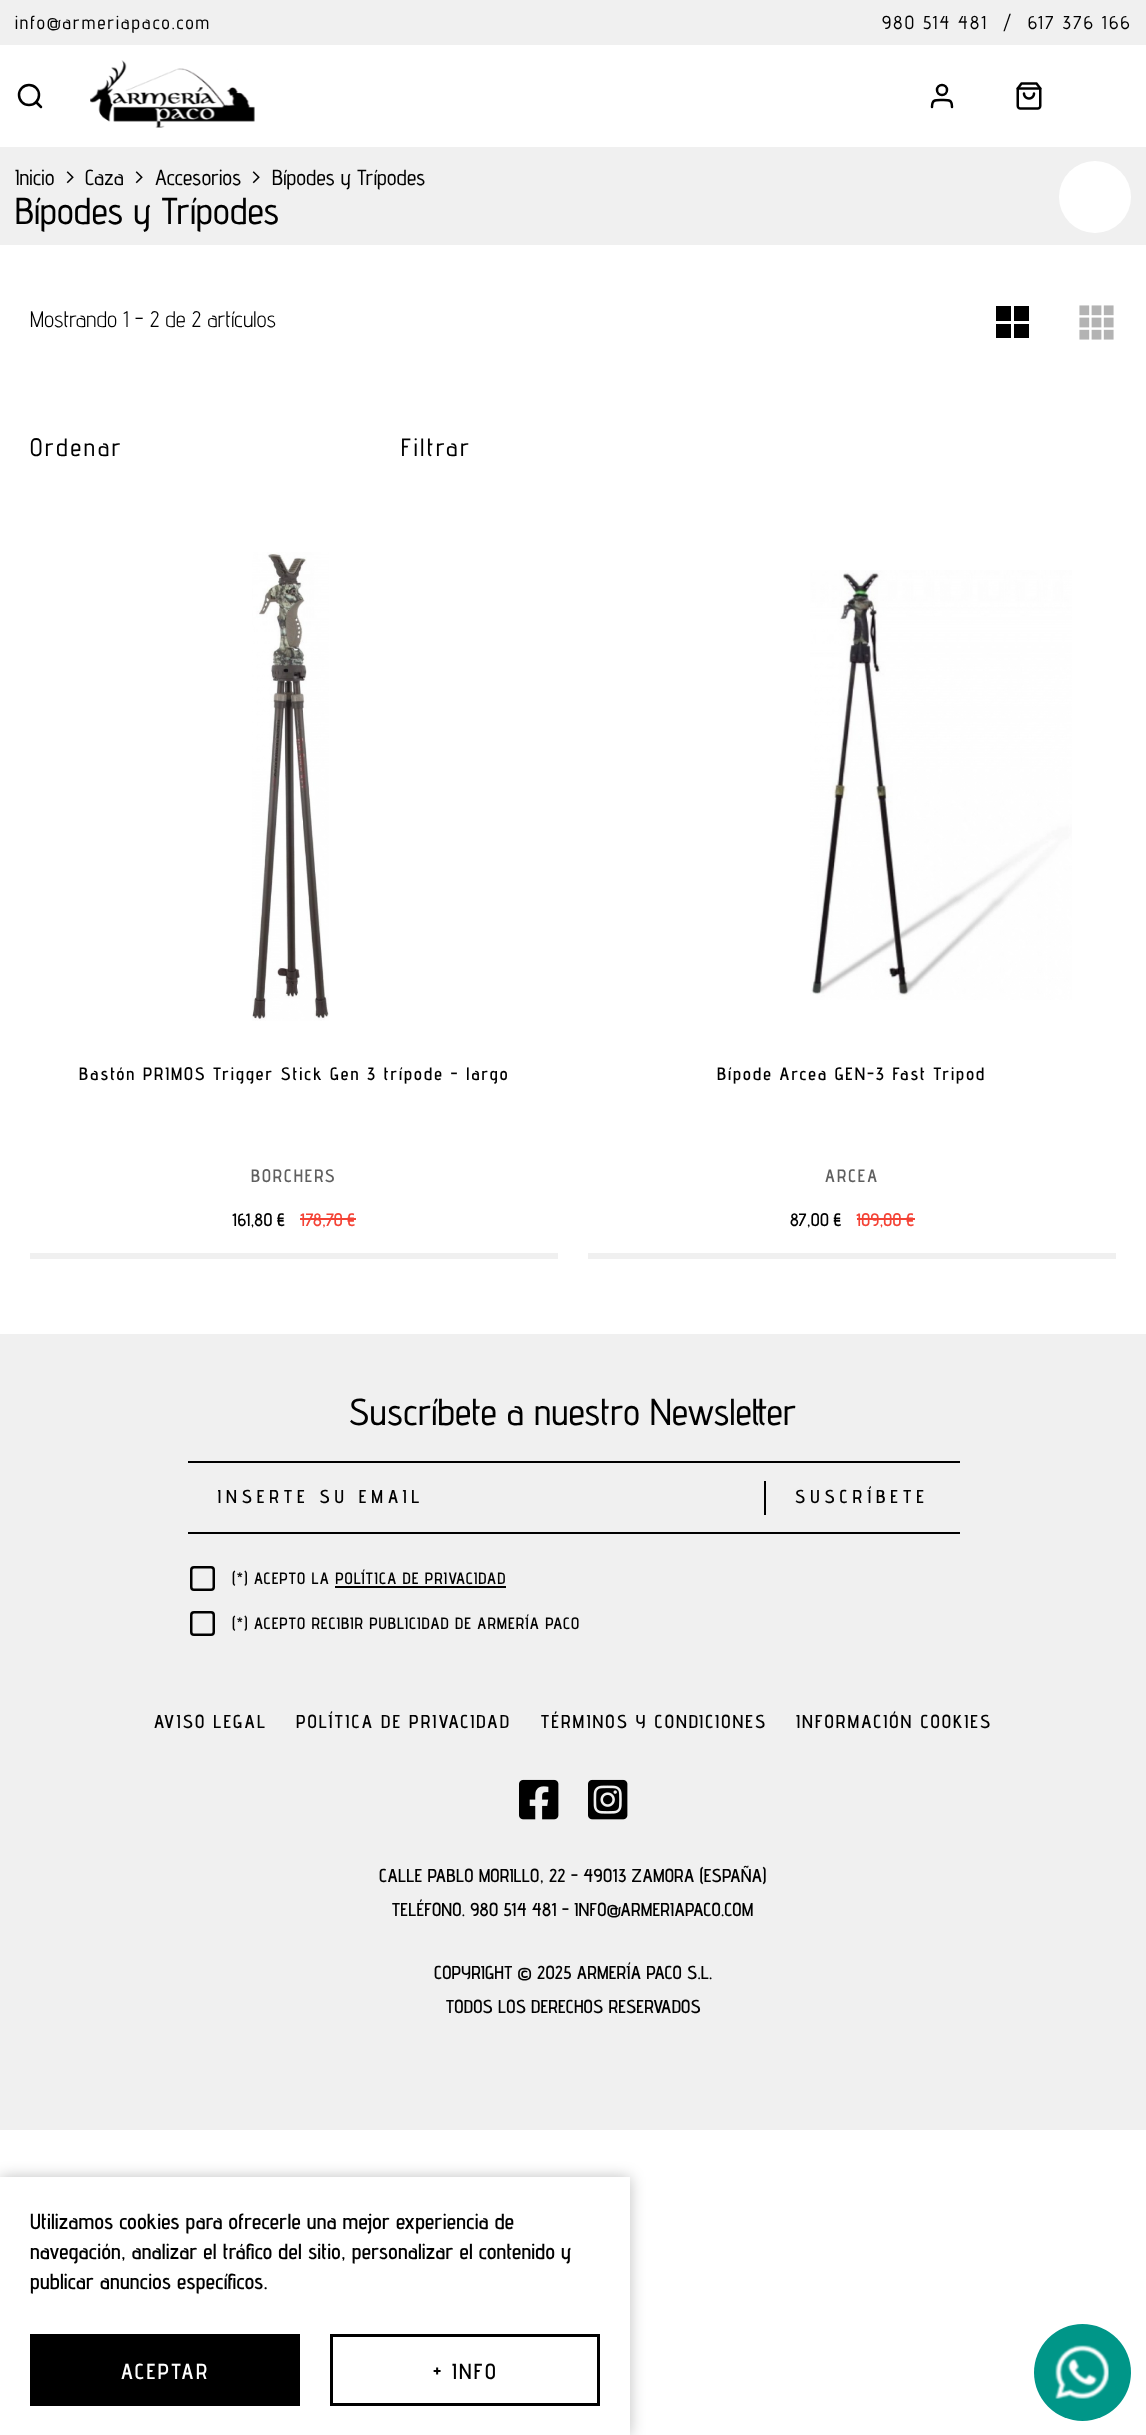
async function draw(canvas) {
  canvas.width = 1146
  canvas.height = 2435
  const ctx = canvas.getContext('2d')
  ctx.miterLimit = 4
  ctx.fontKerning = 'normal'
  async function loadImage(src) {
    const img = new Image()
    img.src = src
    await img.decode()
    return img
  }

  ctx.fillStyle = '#fff'
  ctx.fillRect(0, 0, 1146, 2435)
  ctx.fillStyle = '#f0f0f0'
  ctx.fillRect(0, 0, 1146, 45)
  ctx.letterSpacing = '1.9px'
  ctx.font = '500 18.75px Advent Pro'
  ctx.fillStyle = '#000'
  ctx.fillText('info@armeriapaco.com', 15, 29)
  ctx.fillText('980 514 481', 882, 29)
  ctx.fillText('/', 1003, 29)
  ctx.fillText('617 376 166', 1028, 29)
  ctx.beginPath()
  ctx.arc(29, 95, 10, 0, 2 * Math.PI)
  ctx.strokeStyle = '#000'
  ctx.lineWidth = 2.5
  ctx.stroke()
  ctx.beginPath()
  ctx.moveTo(41, 107)
  ctx.lineTo(36, 102)
  ctx.lineCap = 'round'
  ctx.lineJoin = 'round'
  ctx.stroke()
  ctx.drawImage(await loadImage('image0.png'), 90, 60, 165, 68)
  ctx.beginPath()
  ctx.moveTo(952, 107)
  ctx.bezierCurveTo(952, 99.5, 949, 100, 942, 100)
  ctx.bezierCurveTo(935, 100, 932, 99.5, 932, 107)
  ctx.stroke()
  ctx.beginPath()
  ctx.arc(942, 90, 5, 0, 2 * Math.PI)
  ctx.stroke()
  ctx.drawImage(await loadImage('image1.png'), 1016, 82, 26, 28)
  ctx.fillStyle = '#f0f0f0'
  ctx.fillRect(0, 147, 1146, 98)
  ctx.letterSpacing = '0px'
  ctx.font = '500 21.75px Advent Pro'
  ctx.fillStyle = '#000'
  ctx.fillText('Inicio', 15, 185)
  ctx.fillText('>', 66, 185)
  ctx.fillText('Caza', 85, 185)
  ctx.fillText('>', 135, 185)
  ctx.fillText('Accesorios', 155, 185)
  ctx.fillText('>', 252, 185)
  ctx.fillText('Bípodes y Trípodes', 272, 185)
  ctx.fillStyle = '#fff'
  ctx.beginPath()
  ctx.arc(1095, 197, 36, 0, 2 * Math.PI)
  ctx.fill()
  ctx.font = '500 37.5px Advent Pro'
  ctx.fillStyle = '#000'
  ctx.fillText('Bípodes y Trípodes', 15, 224)
  ctx.font = '22.5px Advent Pro'
  ctx.fillText('Mostrando 1 - 2 de 2 artículos', 30, 327)
  ctx.fillRect(996, 306, 15, 15)
  ctx.fillRect(1014, 306, 15, 15)
  ctx.fillRect(996, 324, 15, 14)
  ctx.fillRect(1014, 324, 15, 14)
  ctx.drawImage(await loadImage('image2.png'), 1079, 305, 35, 35)
  ctx.letterSpacing = '2.5px'
  ctx.font = '500 25px Advent Pro'
  ctx.fillText('Ordenar', 30, 456)
  ctx.fillText('Filtrar', 401, 456)
  ctx.fillStyle = '#f0f0f0'
  ctx.fillRect(30, 1253, 528, 6)
  ctx.drawImage(await loadImage('image3.png'), 252, 552, 77, 469)
  ctx.letterSpacing = '1.8px'
  ctx.font = '600 18px Advent Pro'
  ctx.fillStyle = '#000'
  ctx.fillText('Bastón PRIMOS Trigger Stick Gen 3 trípode - largo', 79, 1080)
  ctx.fillStyle = '#5f5f5f'
  ctx.fillText('BORCHERS', 251, 1182)
  ctx.letterSpacing = '0px'
  ctx.fillStyle = '#000'
  ctx.fillText('161,80 €', 232, 1226)
  ctx.fillStyle = '#f44336'
  ctx.fillText('178,70 €', 300, 1226)
  ctx.fillRect(300, 1218, 56, 2)
  ctx.fillStyle = '#f0f0f0'
  ctx.fillRect(588, 1253, 528, 6)
  ctx.drawImage(await loadImage('image4.png'), 810, 570, 262, 430)
  ctx.letterSpacing = '1.8px'
  ctx.fillStyle = '#000'
  ctx.fillText('Bípode Arcea GEN-3 Fast Tripod', 717, 1080)
  ctx.fillStyle = '#5f5f5f'
  ctx.fillText('ARCEA', 825, 1182)
  ctx.letterSpacing = '0px'
  ctx.fillStyle = '#000'
  ctx.fillText('87,00 €', 790, 1226)
  ctx.fillStyle = '#f44336'
  ctx.fillText('109,00 €', 856, 1226)
  ctx.fillRect(857, 1218, 58, 2)
  ctx.fillStyle = '#f0f0f0'
  ctx.fillRect(0, 1334, 1146, 796)
  ctx.font = '500 37.5px Advent Pro'
  ctx.fillStyle = '#000'
  ctx.fillText('Suscríbete a nuestro Newsletter', 349, 1425)
  ctx.fillRect(188, 1461, 772, 2)
  ctx.save()
  ctx.beginPath()
  ctx.rect(218, 1485, 517, 23)
  ctx.clip()
  ctx.letterSpacing = '4.75px'
  ctx.font = '600 18.75px Advent Pro'
  ctx.fillText('INSERTE SU EMAIL', 217, 1503)
  ctx.restore()
  ctx.fillRect(188, 1532, 772, 2)
  ctx.fillRect(764, 1481, 2, 34)
  ctx.letterSpacing = '4.75px'
  ctx.font = '600 18.75px Advent Pro'
  ctx.fillText('SUSCRÍBETE', 795, 1503)
  ctx.beginPath()
  ctx.roundRect(191.25, 1567.25, 22.5, 22.5, 2.75)
  ctx.lineJoin = 'miter'
  ctx.stroke()
  ctx.letterSpacing = '0.85px'
  ctx.font = '600 16.5px Advent Pro'
  ctx.fillText('(*) ACEPTO LA POLÍTICA DE PRIVACIDAD', 232, 1584)
  ctx.fillRect(335, 1586, 171, 2)
  ctx.beginPath()
  ctx.roundRect(191.25, 1612.25, 22.5, 22.5, 2.75)
  ctx.stroke()
  ctx.fillText('(*) ACEPTO RECIBIR PUBLICIDAD DE ARMERÍA PACO', 232, 1629)
  ctx.letterSpacing = '1.9px'
  ctx.font = '600 18.75px Advent Pro'
  ctx.fillText('AVISO LEGAL', 154, 1728)
  ctx.fillText('POLÍTICA DE PRIVACIDAD', 296, 1728)
  ctx.fillText('TÉRMINOS Y CONDICIONES', 541, 1728)
  ctx.fillText('INFORMACIÓN COOKIES', 796, 1728)
  ctx.drawImage(await loadImage('image5.png'), 519, 1779, 40, 41)
  ctx.drawImage(await loadImage('image6.png'), 588, 1779, 40, 41)
  ctx.letterSpacing = '0px'
  ctx.fillText('CALLE PABLO MORILLO, 22 - 49013 ZAMORA (ESPAÑA)', 379, 1882)
  ctx.fillText('TELÉFONO. 980 514 481 - INFO@ARMERIAPACO.COM', 392, 1916)
  ctx.fillText('COPYRIGHT © 2025 ARMERÍA PACO S.L.', 434, 1979)
  ctx.fillText('TODOS LOS DERECHOS RESERVADOS', 446, 2013)
  ctx.fillStyle = '#00000040'
  ctx.filter = 'blur(7.5px)'
  ctx.beginPath()
  ctx.rect(0, 2177, 630, 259)
  ctx.fill()
  ctx.filter = 'none'
  ctx.fillStyle = '#fff'
  ctx.fillRect(0, 2177, 630, 258)
  ctx.font = '600 21.75px Advent Pro'
  ctx.fillStyle = '#000'
  ctx.fillText('Utilizamos cookies para ofrecerle una mejor experiencia de', 30, 2229)
  ctx.fillText('navegación, analizar el tráfico del sitio, personalizar el contenido y', 30, 2259)
  ctx.fillText('publicar anuncios específicos.', 30, 2289)
  ctx.fillRect(30, 2334, 270, 72)
  ctx.letterSpacing = '2.25px'
  ctx.fillStyle = '#fff'
  ctx.fillText('ACEPTAR', 121, 2379)
  ctx.lineWidth = 3
  ctx.strokeRect(331.5, 2335.5, 267, 69)
  ctx.fillStyle = '#000'
  ctx.fillText('+ INFO', 433, 2379)
  ctx.fillStyle = '#009688'
  ctx.beginPath()
  ctx.arc(1082.5, 2372.5, 48.5, 0, 2 * Math.PI)
  ctx.fill()
  ctx.drawImage(await loadImage('image7.png'), 1055, 2345, 54, 54)
}

draw(document.querySelector('canvas'))
